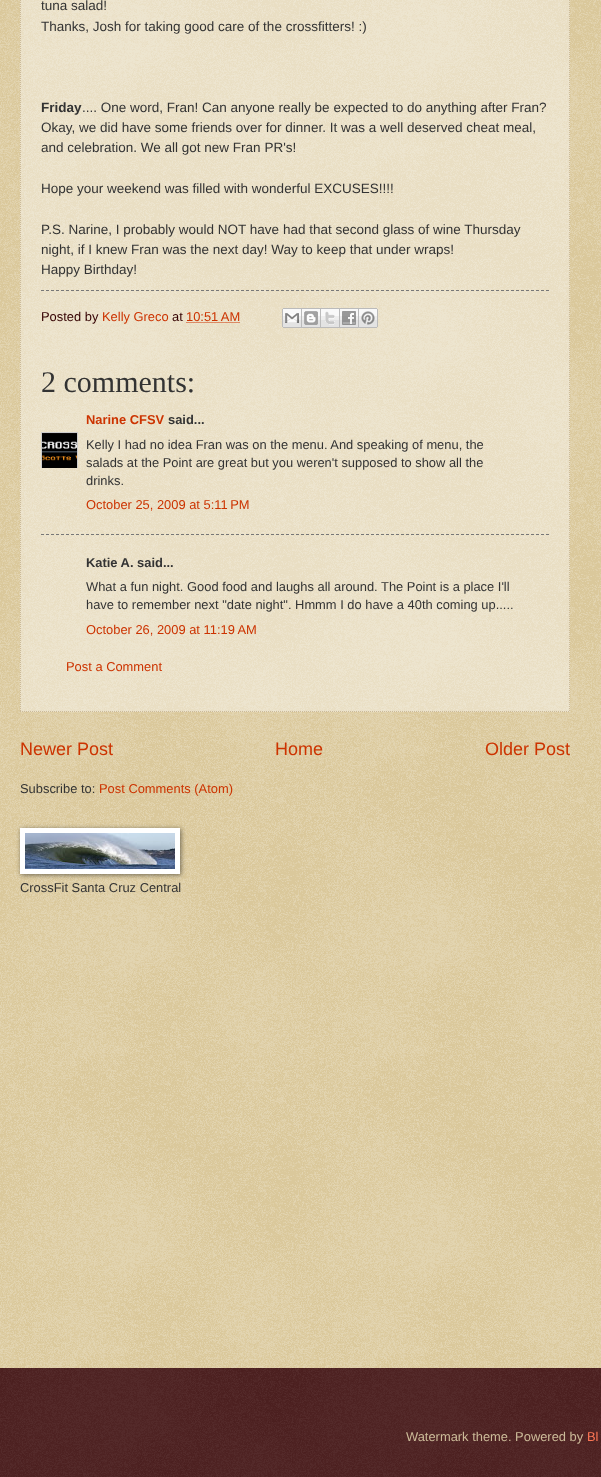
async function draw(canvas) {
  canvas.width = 601
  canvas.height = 1477
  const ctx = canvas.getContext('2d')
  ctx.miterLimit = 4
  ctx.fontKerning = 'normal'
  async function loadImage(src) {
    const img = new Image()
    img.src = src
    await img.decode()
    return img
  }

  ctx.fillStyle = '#c0a154'
  ctx.fillRect(0, 0, 601, 1477)
  ctx.drawImage(await loadImage('image0.png'), 0, 0, 601, 1368)
  ctx.fillStyle = '#ffffff66'
  ctx.fillRect(20, 0, 550, 712)
  ctx.beginPath()
  ctx.moveTo(569.5, -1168)
  ctx.lineTo(569.5, 712)
  ctx.strokeStyle = '#cb9'
  ctx.setLineDash([1, 1])
  ctx.stroke()
  ctx.beginPath()
  ctx.moveTo(20, 711.5)
  ctx.lineTo(570, 711.5)
  ctx.stroke()
  ctx.beginPath()
  ctx.moveTo(20.5, -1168)
  ctx.lineTo(20.5, 712)
  ctx.stroke()
  ctx.font = '13.5px Liberation Sans'
  ctx.fillStyle = '#333'
  ctx.fillText('tuna salad!', 41, 10)
  ctx.fillText('Thanks, Josh for taking good care of the crossfitters! :)', 41, 31)
  ctx.font = 'bold 13.5px Liberation Sans'
  ctx.fillText('Friday', 41, 112)
  ctx.font = '13.5px Liberation Sans'
  ctx.fillText('.... One word, Fran! Can anyone really be expected to do anything after Fran?', 82, 112)
  ctx.fillText('Okay, we did have some friends over for dinner. It was a well deserved cheat meal,', 41, 132)
  ctx.fillText('and celebration. We all got new Fran PR\'s!', 41, 152)
  ctx.fillText('Hope your weekend was filled with wonderful EXCUSES!!!!', 41, 193)
  ctx.fillText('P.S. Narine, I probably would NOT have had that second glass of wine Thursday', 41, 234)
  ctx.fillText('night, if I knew Fran was the next day! Way to keep that under wraps!', 41, 254)
  ctx.fillText('Happy Birthday!', 41, 274)
  ctx.beginPath()
  ctx.moveTo(41, 290.5)
  ctx.lineTo(549, 290.5)
  ctx.strokeStyle = '#777'
  ctx.setLineDash([3, 2])
  ctx.stroke()
  ctx.font = '12.9px Liberation Sans'
  ctx.fillStyle = '#300'
  ctx.fillText('Posted by', 41, 321)
  ctx.fillStyle = '#c30'
  ctx.fillText('Kelly Greco', 102, 321)
  ctx.fillStyle = '#300'
  ctx.fillText('at', 172, 321)
  ctx.fillStyle = '#c30'
  ctx.fillText('10:51 AM', 186, 321)
  ctx.beginPath()
  ctx.moveTo(186.5, 322.5)
  ctx.lineTo(240.5, 322.5)
  ctx.strokeStyle = '#c30'
  ctx.setLineDash([1, 1])
  ctx.stroke()
  ctx.drawImage(await loadImage('image1.png'), 282, 308, 20, 20)
  ctx.drawImage(await loadImage('image2.png'), 302, 308, 19, 20)
  ctx.drawImage(await loadImage('image3.png'), 321, 308, 19, 20)
  ctx.drawImage(await loadImage('image4.png'), 340, 308, 19, 20)
  ctx.drawImage(await loadImage('image5.png'), 359, 308, 19, 20)
  ctx.font = '30px Liberation Serif'
  ctx.fillStyle = '#333'
  ctx.fillText('2 comments:', 41, 392)
  ctx.font = 'bold 12.9px Liberation Sans'
  ctx.fillStyle = '#c30'
  ctx.fillText('Narine CFSV', 86, 424)
  ctx.fillStyle = '#333'
  ctx.fillText('said...', 168, 424)
  ctx.save()
  ctx.beginPath()
  ctx.rect(41, 432, 37, 36)
  ctx.clip()
  ctx.strokeStyle = '#ccc'
  ctx.setLineDash([])
  ctx.strokeRect(41.5, 432.5, 36, 36)
  ctx.restore()
  ctx.drawImage(await loadImage('image6.png'), 42, 433, 35, 35)
  ctx.font = '12.9px Liberation Sans'
  ctx.fillText('Kelly I had no idea Fran was on the menu. And speaking of menu, the', 86, 449)
  ctx.fillText('salads at the Point are great but you weren\'t supposed to show all the', 86, 467)
  ctx.fillText('drinks.', 86, 485)
  ctx.fillStyle = '#c30'
  ctx.fillText('October 25, 2009 at 5:11 PM', 86, 509)
  ctx.beginPath()
  ctx.moveTo(41, 534.5)
  ctx.lineTo(549, 534.5)
  ctx.strokeStyle = '#777'
  ctx.setLineDash([3, 2])
  ctx.stroke()
  ctx.font = 'bold 12.9px Liberation Sans'
  ctx.fillStyle = '#333'
  ctx.fillText('Katie A. said...', 86, 567)
  ctx.font = '12.9px Liberation Sans'
  ctx.fillText('What a fun night. Good food and laughs all around. The Point is a place I\'ll', 86, 591)
  ctx.fillText('have to remember next "date night". Hmmm I do have a 40th coming up.....', 86, 609)
  ctx.fillStyle = '#c30'
  ctx.fillText('October 26, 2009 at 11:19 AM', 86, 634)
  ctx.fillText('Post a Comment', 66, 671)
  ctx.font = '18px Liberation Sans'
  ctx.fillText('Newer Post', 20, 755)
  ctx.fillText('Home', 275, 755)
  ctx.fillText('Older Post', 485, 755)
  ctx.font = '12.9px Liberation Sans'
  ctx.fillStyle = '#333'
  ctx.fillText('Subscribe to:', 20, 793)
  ctx.fillStyle = '#c30'
  ctx.fillText('Post Comments (Atom)', 99, 793)
  ctx.fillStyle = '#00000080'
  ctx.filter = 'blur(2.5px)'
  ctx.beginPath()
  ctx.rect(21, 829, 160, 46)
  ctx.fill()
  ctx.filter = 'none'
  ctx.fillStyle = '#fff'
  ctx.fillRect(20, 828, 160, 46)
  ctx.drawImage(await loadImage('image7.png'), 25, 833, 150, 36)
  ctx.fillStyle = '#333'
  ctx.fillText('CrossFit Santa Cruz Central', 20, 892)
  ctx.fillStyle = '#300'
  ctx.fillRect(0, 1368, 601, 109)
  ctx.drawImage(await loadImage('image8.png'), 0, 1368, 601, 109)
  ctx.fillStyle = '#cb9'
  ctx.fillText('Watermark theme. Powered by', 406, 1441)
  ctx.fillStyle = '#f75'
  ctx.fillText('Bl', 587, 1441)
}

draw(document.querySelector('canvas'))
